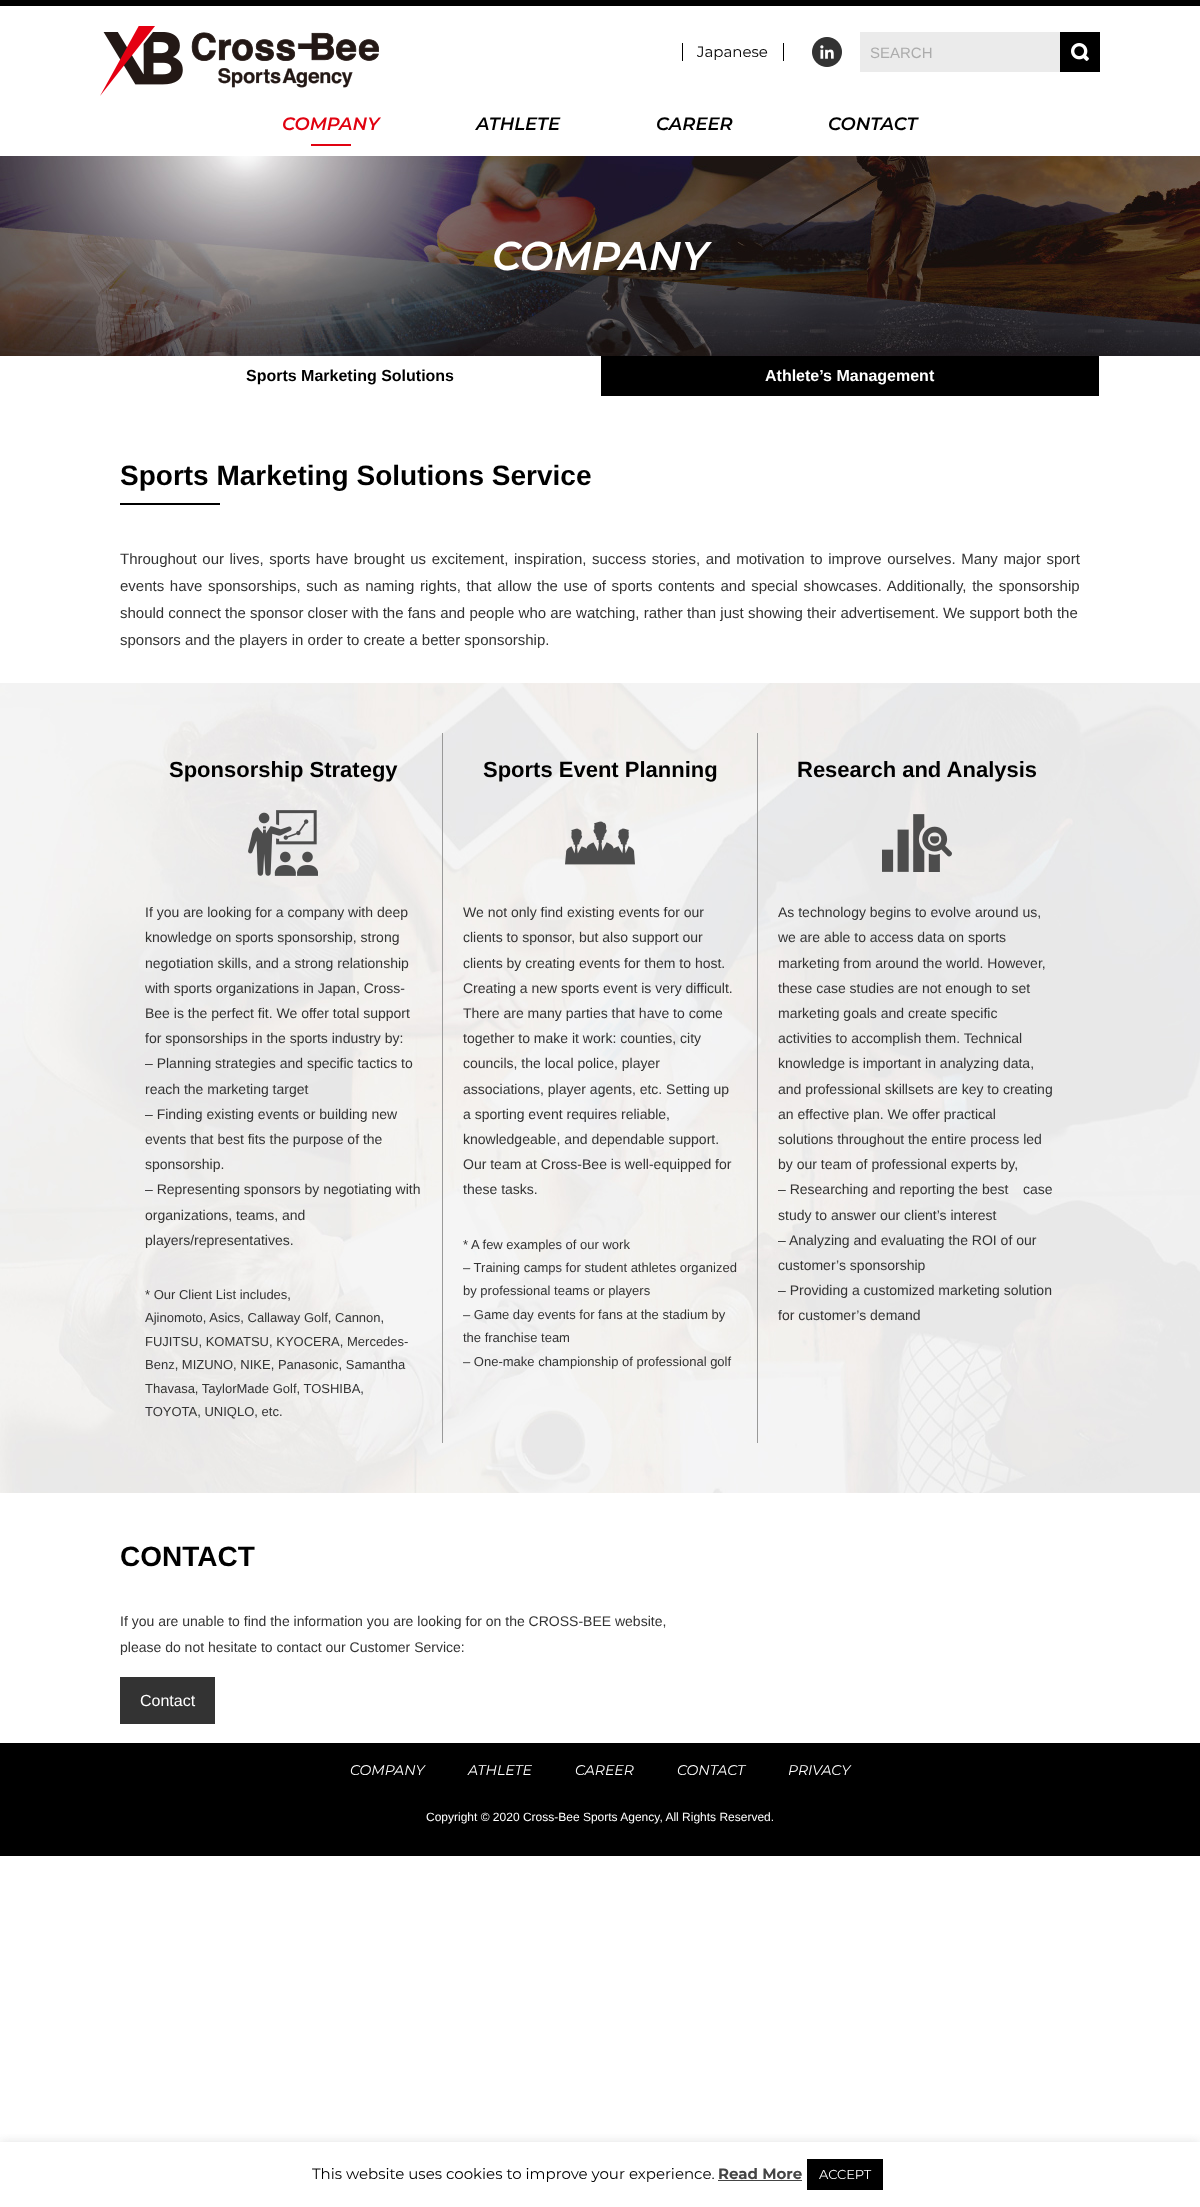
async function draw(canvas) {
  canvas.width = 1200
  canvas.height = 2207
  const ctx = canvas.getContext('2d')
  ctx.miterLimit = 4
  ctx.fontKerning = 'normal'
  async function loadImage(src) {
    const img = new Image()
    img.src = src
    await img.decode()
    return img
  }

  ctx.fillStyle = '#fff'
  ctx.fillRect(0, 0, 1200, 2207)
  ctx.fillStyle = '#000'
  ctx.fillRect(0, 0, 1200, 6)
  ctx.drawImage(await loadImage('image0.png'), 100, 26, 279, 70)
  ctx.fillRect(783, 43, 1, 18)
  ctx.fillRect(682, 43, 1, 18)
  ctx.font = '15px Montserrat'
  ctx.fillText('Japanese', 697, 57)
  ctx.drawImage(await loadImage('image1.png'), 812, 37, 30, 30)
  ctx.fillStyle = '#ebebeb'
  ctx.fillRect(860, 32, 200, 40)
  ctx.font = '15px Liberation Sans'
  ctx.fillStyle = '#acacac'
  ctx.fillText('SEARCH', 870, 58)
  ctx.fillStyle = '#000'
  ctx.fillRect(1060, 32, 40, 40)
  ctx.drawImage(await loadImage('image2.png'), 1071, 43, 18, 18)
  ctx.font = 'italic 600 18px Montserrat'
  ctx.fillStyle = '#e10211'
  ctx.fillText('COMPANY', 282, 130)
  ctx.fillRect(311, 144, 40, 2)
  ctx.fillStyle = '#000'
  ctx.fillText('ATHLETE', 476, 130)
  ctx.fillText('CAREER', 656, 130)
  ctx.fillText('CONTACT', 828, 130)
  ctx.drawImage(await loadImage('image3.png'), 0, 156, 1200, 200)
  ctx.font = 'italic 600 40px Montserrat'
  ctx.fillStyle = '#fff'
  ctx.fillText('COMPANY', 492, 270)
  ctx.font = 'bold 16px Liberation Sans'
  ctx.fillStyle = '#000'
  ctx.fillText('Sports Marketing Solutions', 246, 381)
  ctx.fillRect(601, 356, 498, 40)
  ctx.fillStyle = '#fff'
  ctx.fillText('Athlete’s Management', 765, 381)
  ctx.font = 'bold 28px Liberation Sans'
  ctx.fillStyle = '#000'
  ctx.fillText('Sports Marketing Solutions Service', 120, 485)
  ctx.fillRect(120, 503, 100, 2)
  ctx.wordSpacing = '1.4px'
  ctx.font = '15px Liberation Sans'
  ctx.fillStyle = '#333'
  ctx.fillText('Throughout our lives, sports have brought us excitement, inspiration, success stories, and motivation to improve ourselves. Many major sport', 120, 564)
  ctx.wordSpacing = '1.5px'
  ctx.fillText('events have sponsorships, such as naming rights, that allow the use of sports contents and special showcases. Additionally, the sponsorship', 120, 591)
  ctx.wordSpacing = '0px'
  ctx.fillText('should connect the sponsor closer with the fans and people who are watching, rather than just showing their advertisement. We support both the', 120, 618)
  ctx.fillText('sponsors and the players in order to create a better sponsorship.', 120, 645)
  ctx.drawImage(await loadImage('image4.png'), 0, 683, 1200, 810)
  ctx.font = 'bold 22px Liberation Sans'
  ctx.fillStyle = '#000'
  ctx.fillText('Sponsorship Strategy', 169, 777)
  ctx.drawImage(await loadImage('image5.png'), 248, 810, 70, 66)
  ctx.font = '14px Liberation Sans'
  ctx.fillStyle = '#333'
  ctx.fillText('If you are looking for a company with deep', 145, 917)
  ctx.fillText('knowledge on sports sponsorship, strong', 145, 942)
  ctx.fillText('negotiation skills, and a strong relationship', 145, 968)
  ctx.fillText('with sports organizations in Japan, Cross-', 145, 993)
  ctx.fillText('Bee is the perfect fit. We offer total support', 145, 1018)
  ctx.fillText('for sponsorships in the sports industry by:', 145, 1043)
  ctx.fillText('– Planning strategies and specific tactics to', 145, 1068)
  ctx.fillText('reach the marketing target', 145, 1094)
  ctx.fillText('– Finding existing events or building new', 145, 1119)
  ctx.fillText('events that best fits the purpose of the', 145, 1144)
  ctx.fillText('sponsorship.', 145, 1169)
  ctx.fillText('– Representing sponsors by negotiating with', 145, 1194)
  ctx.fillText('organizations, teams, and', 145, 1220)
  ctx.fillText('players/representatives.', 145, 1245)
  ctx.font = '13px Liberation Sans'
  ctx.fillText('* Our Client List includes,', 145, 1299)
  ctx.fillText('Ajinomoto, Asics, Callaway Golf, Cannon,', 145, 1322)
  ctx.fillText('FUJITSU, KOMATSU, KYOCERA, Mercedes-', 145, 1346)
  ctx.fillText('Benz, MIZUNO, NIKE, Panasonic, Samantha', 145, 1369)
  ctx.fillText('Thavasa, TaylorMade Golf, TOSHIBA,', 145, 1393)
  ctx.fillText('TOYOTA, UNIQLO, etc.', 145, 1416)
  ctx.fillStyle = '#999'
  ctx.fillRect(757, 733, 1, 710)
  ctx.fillRect(442, 733, 1, 710)
  ctx.font = 'bold 22px Liberation Sans'
  ctx.fillStyle = '#000'
  ctx.fillText('Sports Event Planning', 483, 777)
  ctx.drawImage(await loadImage('image6.png'), 565, 821, 70, 44)
  ctx.font = '14px Liberation Sans'
  ctx.fillStyle = '#333'
  ctx.fillText('We not only find existing events for our', 463, 917)
  ctx.fillText('clients to sponsor, but also support our', 463, 942)
  ctx.fillText('clients by creating events for them to host.', 463, 968)
  ctx.fillText('Creating a new sports event is very difficult.', 463, 993)
  ctx.fillText('There are many parties that have to come', 463, 1018)
  ctx.fillText('together to make it work: counties, city', 463, 1043)
  ctx.fillText('councils, the local police, player', 463, 1068)
  ctx.fillText('associations, player agents, etc. Setting up', 463, 1094)
  ctx.fillText('a sporting event requires reliable,', 463, 1119)
  ctx.fillText('knowledgeable, and dependable support.', 463, 1144)
  ctx.fillText('Our team at Cross-Bee is well-equipped for', 463, 1169)
  ctx.fillText('these tasks.', 463, 1194)
  ctx.font = '13px Liberation Sans'
  ctx.fillText('* A few examples of our work', 463, 1249)
  ctx.fillText('– Training camps for student athletes organized', 463, 1272)
  ctx.fillText('by professional teams or players', 463, 1295)
  ctx.fillText('– Game day events for fans at the stadium by', 463, 1319)
  ctx.fillText('the franchise team', 463, 1342)
  ctx.fillText('– One-make championship of professional golf', 463, 1366)
  ctx.font = 'bold 22px Liberation Sans'
  ctx.fillStyle = '#000'
  ctx.fillText('Research and Analysis', 797, 777)
  ctx.drawImage(await loadImage('image7.png'), 882, 814, 70, 58)
  ctx.font = '14px Liberation Sans'
  ctx.fillStyle = '#333'
  ctx.fillText('As technology begins to evolve around us,', 778, 917)
  ctx.fillText('we are able to access data on sports', 778, 942)
  ctx.fillText('marketing from around the world. However,', 778, 968)
  ctx.fillText('these case studies are not enough to set', 778, 993)
  ctx.fillText('marketing goals and create specific', 778, 1018)
  ctx.fillText('activities to accomplish them. Technical', 778, 1043)
  ctx.fillText('knowledge is important in analyzing data,', 778, 1068)
  ctx.fillText('and professional skillsets are key to creating', 778, 1094)
  ctx.fillText('an effective plan. We offer practical', 778, 1119)
  ctx.fillText('solutions throughout the entire process led', 778, 1144)
  ctx.fillText('by our team of professional experts by,', 778, 1169)
  ctx.fillText('– Researching and reporting the best', 778, 1194)
  ctx.fillText('case', 1023, 1194)
  ctx.fillText('study to answer our client’s interest', 778, 1220)
  ctx.fillText('– Analyzing and evaluating the ROI of our', 778, 1245)
  ctx.fillText('customer’s sponsorship', 778, 1270)
  ctx.fillText('– Providing a customized marketing solution', 778, 1295)
  ctx.fillText('for customer’s demand', 778, 1320)
  ctx.font = 'bold 28px Liberation Sans'
  ctx.fillStyle = '#000'
  ctx.fillText('CONTACT', 120, 1566)
  ctx.font = '14px Liberation Sans'
  ctx.fillStyle = '#333'
  ctx.fillText('If you are unable to find the information you are looking for on the CROSS-BEE website,', 120, 1626)
  ctx.fillText('please do not hesitate to contact our Customer Service:', 120, 1652)
  ctx.fillRect(120, 1677, 95, 47)
  ctx.font = '16px Liberation Sans'
  ctx.fillStyle = '#fff'
  ctx.fillText('Contact', 140, 1706)
  ctx.fillStyle = '#000'
  ctx.fillRect(0, 1743, 1200, 113)
  ctx.font = 'italic 14px Montserrat'
  ctx.fillStyle = '#fff'
  ctx.fillText('COMPANY', 350, 1775)
  ctx.fillText('ATHLETE', 468, 1775)
  ctx.fillText('CAREER', 575, 1775)
  ctx.fillText('CONTACT', 677, 1775)
  ctx.fillText('PRIVACY', 788, 1775)
  ctx.font = '12px Liberation Sans'
  ctx.fillText('Copyright © 2020 Cross-Bee Sports Agency, All Rights Reserved.', 426, 1821)
  ctx.save()
  ctx.beginPath()
  ctx.rect(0, 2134, 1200, 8)
  ctx.clip()
  ctx.fillStyle = '#acabab4d'
  ctx.filter = 'blur(5px)'
  ctx.beginPath()
  ctx.rect(0, 2141, 1200, 65)
  ctx.fill()
  ctx.filter = 'none'
  ctx.restore()
  ctx.font = '15px Montserrat'
  ctx.fillStyle = '#000'
  ctx.fillText('This website uses cookies to improve your experience.', 312, 2179)
  ctx.font = 'bold 15px Montserrat'
  ctx.fillStyle = '#444'
  ctx.fillText('Read More', 718, 2179)
  ctx.fillRect(718, 2180, 84, 1)
  ctx.fillStyle = '#000'
  ctx.fillRect(807, 2159, 76, 31)
  ctx.font = '13px Montserrat'
  ctx.fillStyle = '#fff'
  ctx.fillText('ACCEPT', 819, 2179)
}

draw(document.querySelector('canvas'))
